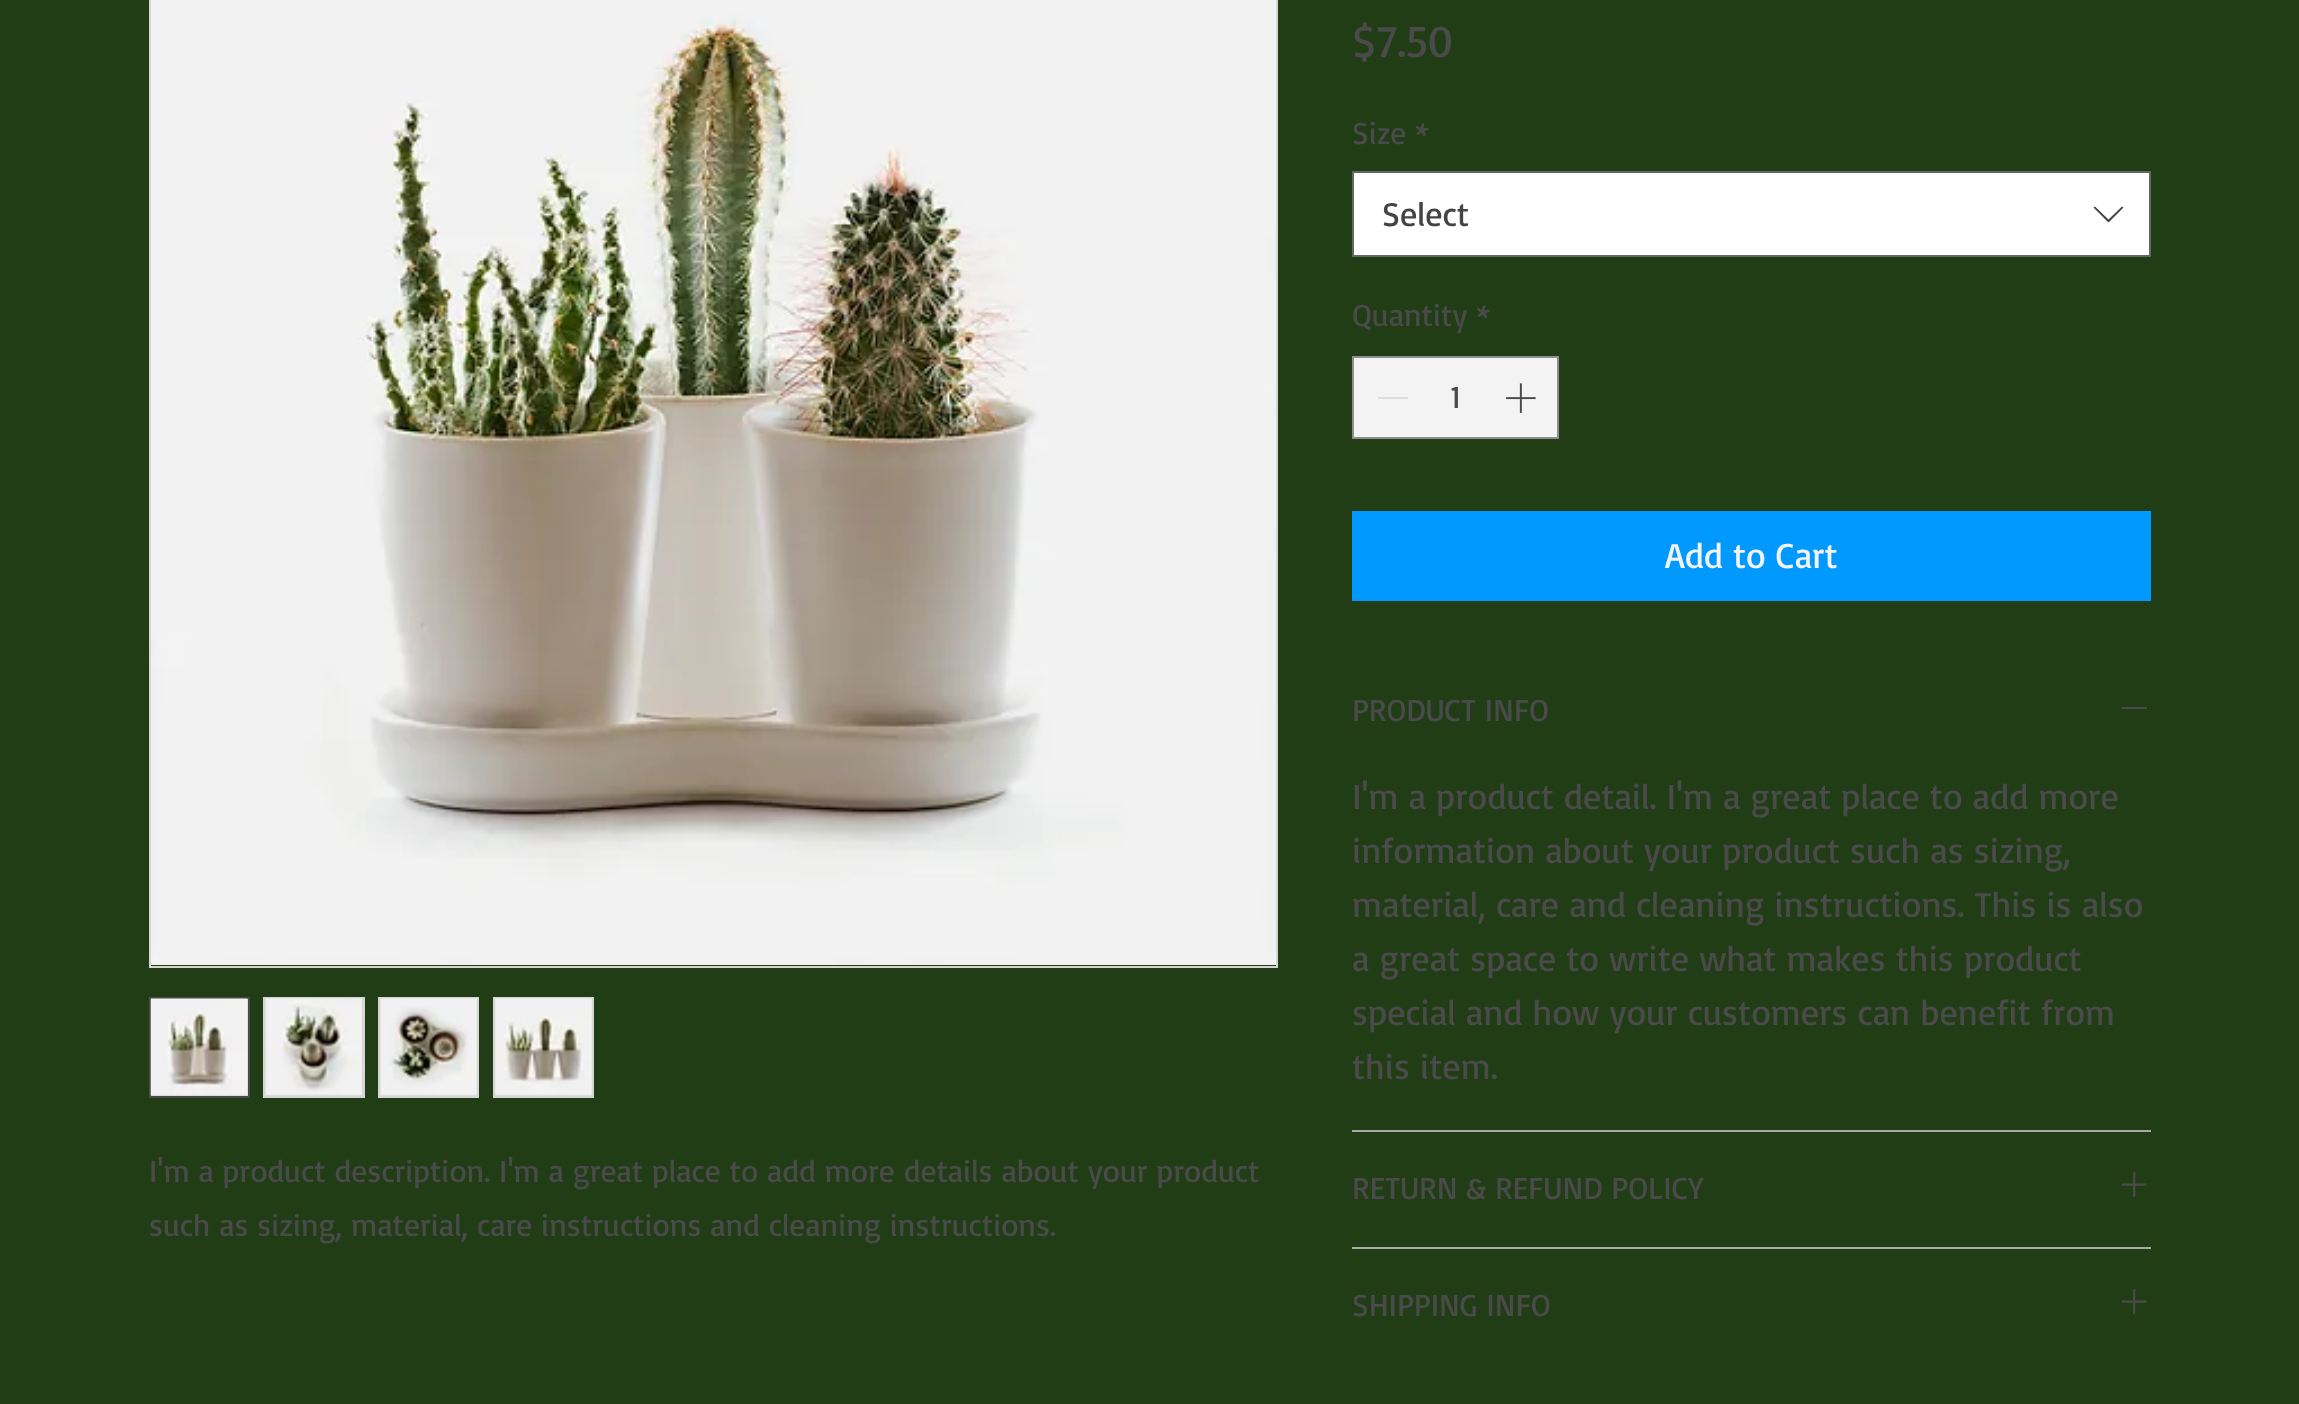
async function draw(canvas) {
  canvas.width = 2299
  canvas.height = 1404
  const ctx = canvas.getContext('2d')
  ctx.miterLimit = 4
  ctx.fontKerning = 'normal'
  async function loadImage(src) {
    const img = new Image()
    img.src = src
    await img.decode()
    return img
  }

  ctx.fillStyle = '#213d16'
  ctx.fillRect(0, 0, 2299, 1404)
  ctx.strokeStyle = '#d6d6d6'
  ctx.lineWidth = 2
  ctx.strokeRect(150, -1, 1127, 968)
  ctx.drawImage(await loadImage('image0.png'), 151, 0, 1125, 965)
  ctx.fillStyle = '#d6d6d6'
  ctx.beginPath()
  ctx.rect(150, 998, 99, 99)
  ctx.fill()
  ctx.strokeStyle = '#4a4a4a'
  ctx.stroke()
  ctx.drawImage(await loadImage('image1.png'), 150, 998, 98, 98)
  ctx.fillRect(263, 997, 102, 101)
  ctx.drawImage(await loadImage('image2.png'), 265, 998, 98, 98)
  ctx.fillRect(378, 997, 101, 101)
  ctx.drawImage(await loadImage('image3.png'), 380, 998, 97, 98)
  ctx.fillRect(493, 997, 101, 101)
  ctx.drawImage(await loadImage('image4.png'), 495, 998, 97, 98)
  ctx.font = '31.5px Basic'
  ctx.fillStyle = '#4a4a4a'
  ctx.fillText('I\'m a product description. I\'m a great place to add more details about your product', 149, 1182)
  ctx.fillText('such as sizing, material, care instructions and cleaning instructions.', 149, 1236)
  ctx.font = '45px Basic'
  ctx.fillText('$7.50', 1352, 57)
  ctx.font = '31.5px Basic'
  ctx.fillText('Size *', 1352, 144)
  ctx.fillStyle = '#fff'
  ctx.beginPath()
  ctx.rect(1353, 172, 797, 84)
  ctx.fill()
  ctx.strokeStyle = '#666'
  ctx.stroke()
  ctx.font = '34px Basic'
  ctx.fillStyle = '#444'
  ctx.fillText('Select', 1382, 226)
  ctx.beginPath()
  ctx.moveTo(2122, 206.5)
  ctx.lineTo(2123.5, 207.5)
  ctx.lineTo(2108.5, 222.5)
  ctx.lineTo(2093.5, 207.5)
  ctx.lineTo(2095, 206.5)
  ctx.lineTo(2108.5, 219.5)
  ctx.closePath()
  ctx.fill('evenodd')
  ctx.font = '31.5px Basic'
  ctx.fillStyle = '#4a4a4a'
  ctx.fillText('Quantity *', 1352, 326)
  ctx.fillStyle = '#f3f3f3'
  ctx.beginPath()
  ctx.rect(1353, 357, 205, 81)
  ctx.fill()
  ctx.strokeStyle = '#8e8e8e'
  ctx.stroke()
  ctx.fillStyle = '#ddd'
  ctx.fillRect(1378, 397, 30, 2)
  ctx.fillStyle = '#4a4a4a'
  ctx.fillText('1', 1450, 408)
  ctx.drawImage(await loadImage('image5.png'), 1506, 383, 30, 30)
  ctx.fillStyle = '#09f'
  ctx.fillRect(1352, 511, 799, 90)
  ctx.font = '36px Basic'
  ctx.fillStyle = '#f3f3f3'
  ctx.fillText('Add to Cart', 1665, 568)
  ctx.fillStyle = '#aaa8a8'
  ctx.fillRect(1352, 1130, 799, 2)
  ctx.font = '31.5px Basic'
  ctx.fillStyle = '#4a4a4a'
  ctx.fillText('PRODUCT INFO', 1352, 721)
  ctx.fillRect(2122, 707, 25, 2)
  ctx.font = '36px Basic'
  ctx.fillText('I\'m a product detail. I\'m a great place to add more', 1352, 809)
  ctx.fillText('information about your product such as sizing,', 1352, 863)
  ctx.fillText('material, care and cleaning instructions. This is also', 1352, 917)
  ctx.fillText('a great space to write what makes this product', 1352, 971)
  ctx.fillText('special and how your customers can benefit from', 1352, 1025)
  ctx.fillText('this item.', 1352, 1079)
  ctx.fillStyle = '#aaa8a8'
  ctx.fillRect(1352, 1247, 799, 2)
  ctx.font = '31.5px Basic'
  ctx.fillStyle = '#4a4a4a'
  ctx.fillText('RETURN & REFUND POLICY', 1352, 1199)
  ctx.drawImage(await loadImage('image6.png'), 2121, 1172, 26, 25)
  ctx.fillText('SHIPPING INFO', 1352, 1316)
  ctx.drawImage(await loadImage('image6.png'), 2121, 1289, 26, 25)
}

draw(document.querySelector('canvas'))
